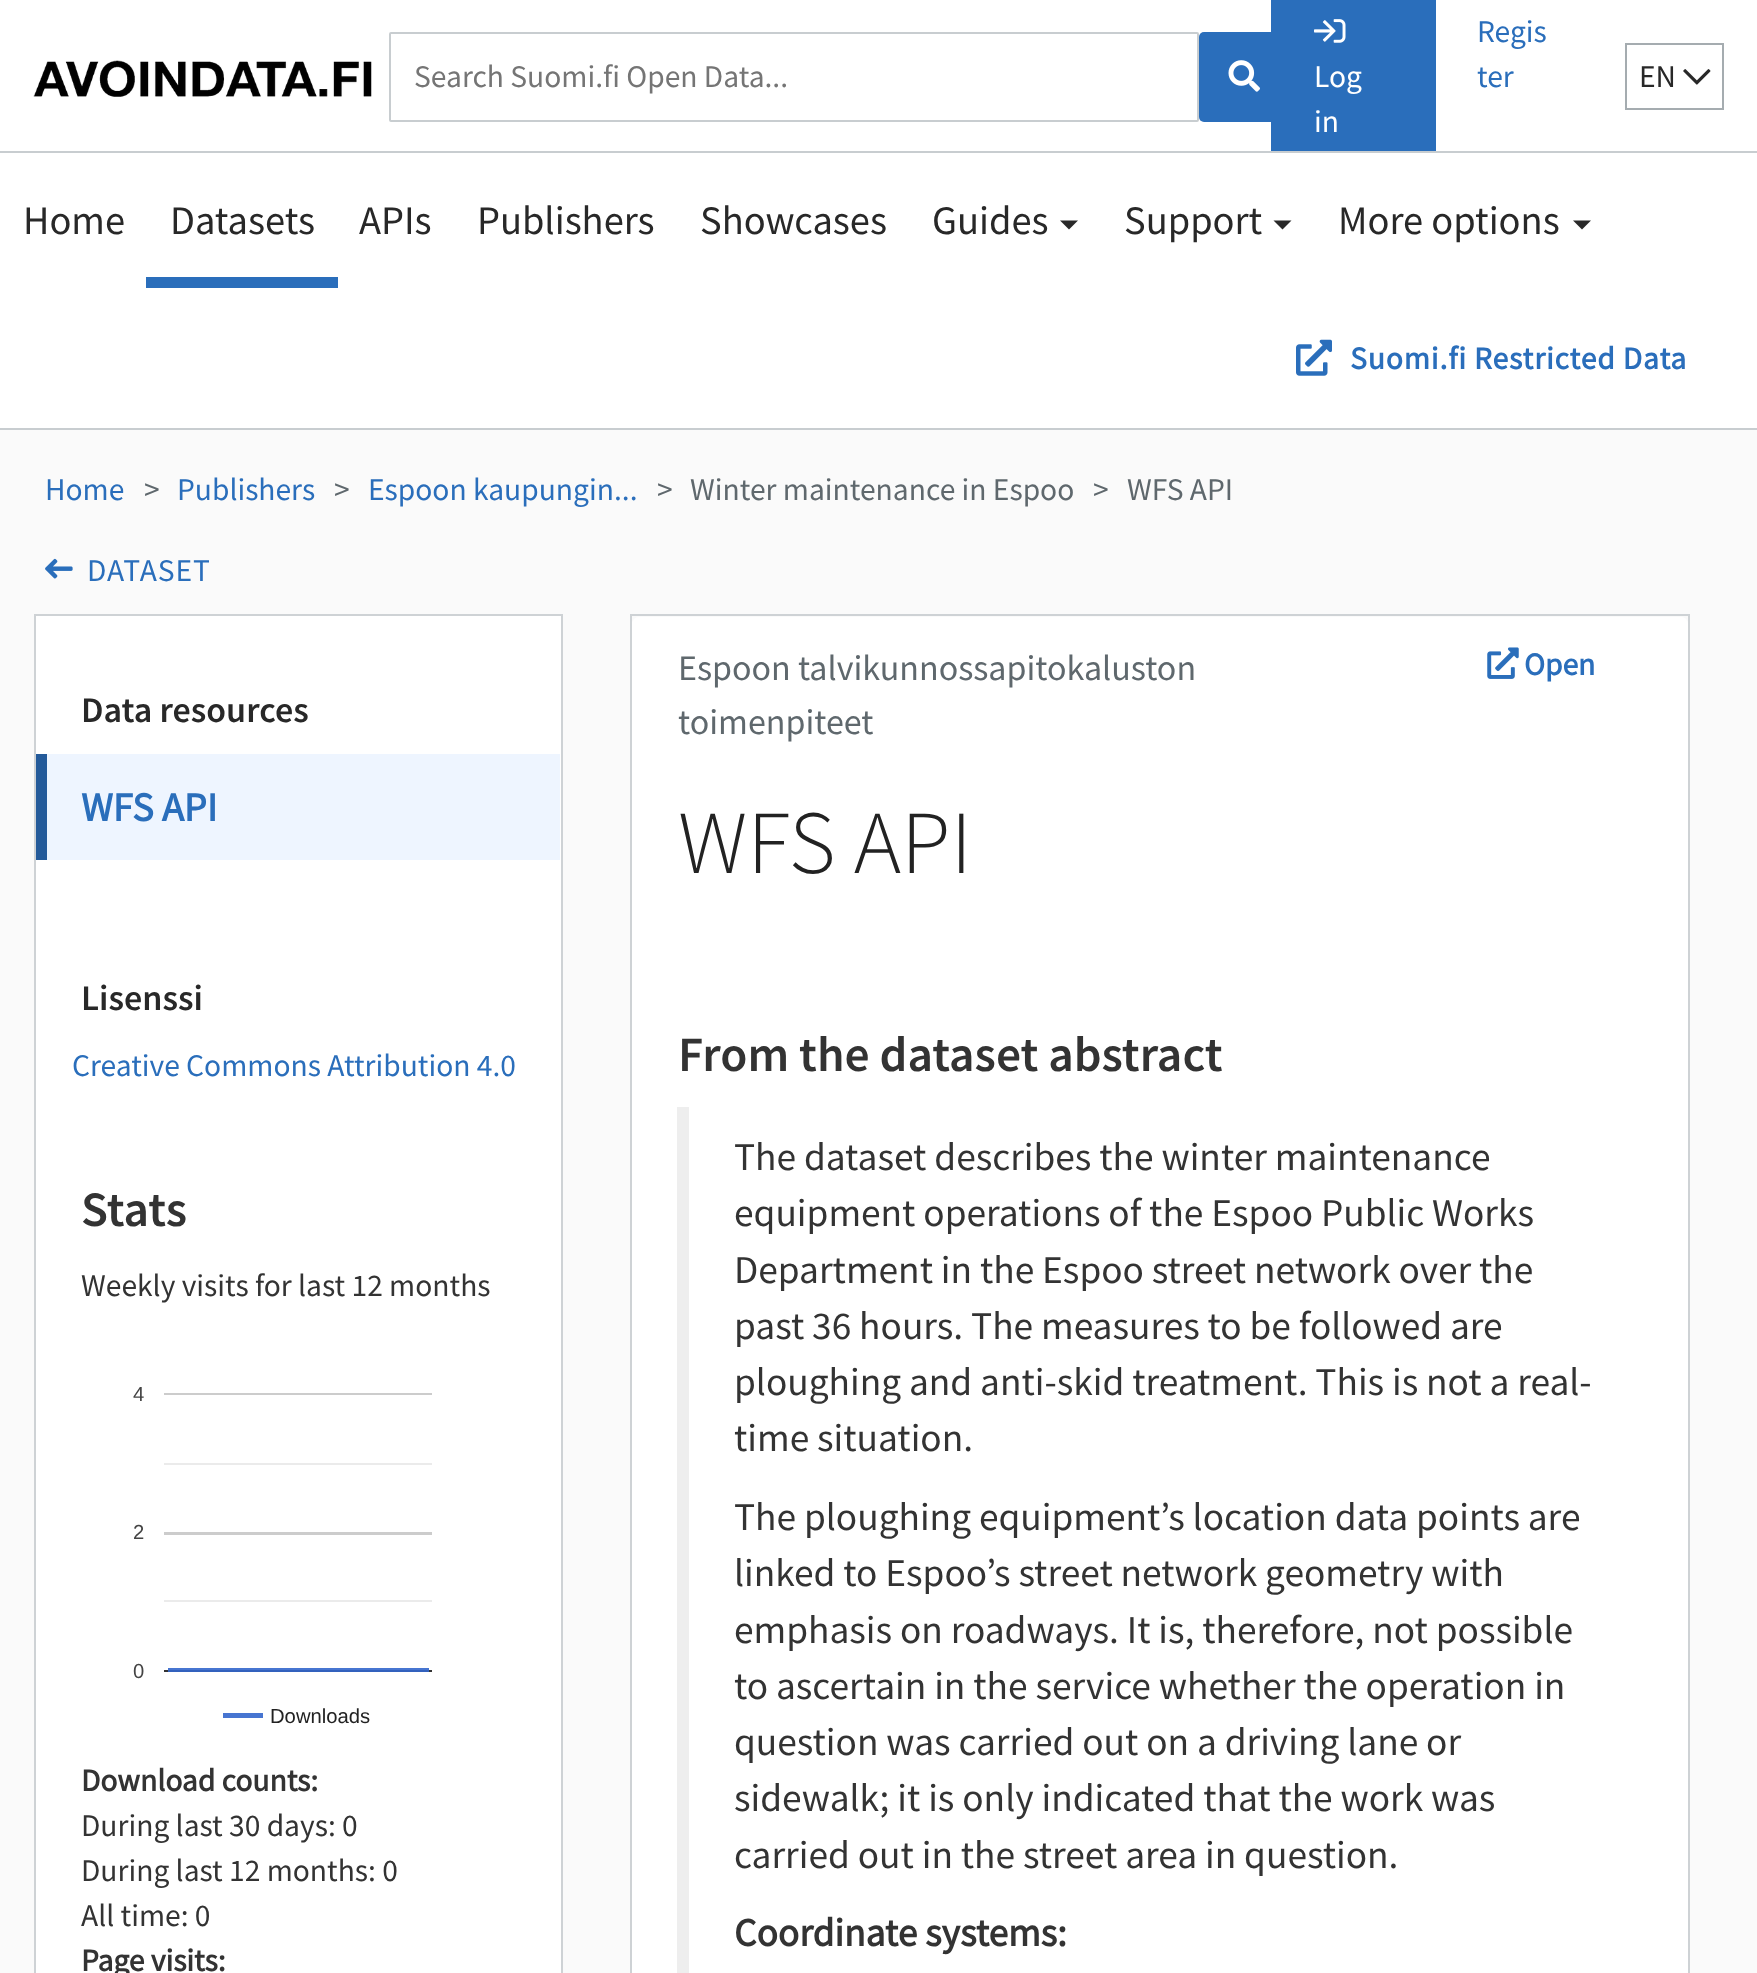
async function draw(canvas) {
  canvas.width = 1757
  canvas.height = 1973
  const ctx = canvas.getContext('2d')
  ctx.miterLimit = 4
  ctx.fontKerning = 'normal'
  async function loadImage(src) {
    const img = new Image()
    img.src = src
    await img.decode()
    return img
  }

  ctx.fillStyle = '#fafafa'
  ctx.fillRect(0, 0, 1757, 1973)
  ctx.fillStyle = '#fff'
  ctx.fillRect(0, 0, 1757, 151)
  ctx.drawImage(await loadImage('image0.png'), 33, 60, 339, 37)
  ctx.beginPath()
  ctx.roundRect(390, 33, 808, 88, 1)
  ctx.strokeStyle = '#c8cdd0'
  ctx.lineWidth = 2
  ctx.stroke()
  ctx.font = '31.5px Source Sans Pro'
  ctx.fillStyle = '#757575'
  ctx.fillText('Search Suomi.fi Open Data...', 414, 87)
  ctx.fillStyle = '#2a6ebb'
  ctx.beginPath()
  ctx.roundRect(1199, 32, 90, 90, 5)
  ctx.fill()
  ctx.drawImage(await loadImage('image1.png'), 1228, 60, 32, 32)
  ctx.fillText('Regis', 1477, 42)
  ctx.fillText('ter', 1477, 87)
  ctx.fillRect(1271, 0, 165, 151)
  ctx.drawImage(await loadImage('image2.png'), 1314, 19, 32, 24)
  ctx.fillStyle = '#fff'
  ctx.fillText('Log', 1314, 87)
  ctx.fillText('in', 1314, 132)
  ctx.strokeStyle = '#a5acb0'
  ctx.strokeRect(1626, 44, 97, 65)
  ctx.fillStyle = '#282828'
  ctx.fillText('EN', 1639, 87)
  ctx.drawImage(await loadImage('image3.png'), 1683, 69, 28, 16)
  ctx.fillStyle = '#fff'
  ctx.fillRect(0, 153, 1757, 275)
  ctx.fillStyle = '#c8cdd0'
  ctx.fillRect(0, 151, 1757, 2)
  ctx.fillRect(0, 428, 1757, 2)
  ctx.font = '40.5px Source Sans Pro'
  ctx.fillStyle = '#282828'
  ctx.fillText('Home', 23, 234)
  ctx.fillStyle = '#2a6ebb'
  ctx.fillRect(146, 277, 192, 11)
  ctx.fillStyle = '#282828'
  ctx.fillText('Datasets', 170, 234)
  ctx.fillText('APIs', 359, 234)
  ctx.fillText('Publishers', 477, 234)
  ctx.fillText('Showcases', 700, 234)
  ctx.fillText('Guides', 932, 234)
  ctx.fillStyle = '#292929'
  ctx.beginPath()
  ctx.moveTo(1060, 220.5)
  ctx.lineTo(1078, 220.5)
  ctx.lineTo(1069, 229.5)
  ctx.closePath()
  ctx.fill()
  ctx.fillStyle = '#282828'
  ctx.fillText('Support', 1124, 234)
  ctx.fillStyle = '#292929'
  ctx.beginPath()
  ctx.moveTo(1273.5, 220.5)
  ctx.lineTo(1291.5, 220.5)
  ctx.lineTo(1282.5, 229.5)
  ctx.closePath()
  ctx.fill()
  ctx.fillStyle = '#282828'
  ctx.fillText('More options', 1338, 234)
  ctx.fillStyle = '#292929'
  ctx.beginPath()
  ctx.moveTo(1573, 220.5)
  ctx.lineTo(1591, 220.5)
  ctx.lineTo(1582, 229.5)
  ctx.closePath()
  ctx.fill()
  ctx.drawImage(await loadImage('image4.png'), 1296, 339, 36, 37)
  ctx.letterSpacing = '0.9px'
  ctx.font = 'bold 31.5px Source Sans Pro'
  ctx.fillStyle = '#2a6ebb'
  ctx.fillText('Suomi.fi Restricted Data', 1350, 369)
  ctx.letterSpacing = '0px'
  ctx.font = '31.5px Source Sans Pro'
  ctx.fillText('Home', 45, 500)
  ctx.fillStyle = '#5f686d'
  ctx.fillText('>', 144, 500)
  ctx.fillStyle = '#2a6ebb'
  ctx.fillText('Publishers', 177, 500)
  ctx.fillStyle = '#5f686d'
  ctx.fillText('>', 334, 500)
  ctx.fillStyle = '#2a6ebb'
  ctx.fillText('Espoon kaupungin...', 368, 500)
  ctx.fillStyle = '#5f686d'
  ctx.fillText('>', 657, 500)
  ctx.fillText('Winter maintenance in Espoo', 690, 500)
  ctx.fillText('>', 1093, 500)
  ctx.fillText('WFS API', 1127, 500)
  ctx.drawImage(await loadImage('image5.png'), 45, 558, 28, 21)
  ctx.letterSpacing = '0.9px'
  ctx.fillStyle = '#2a6ebb'
  ctx.fillText('DATASET', 87, 581)
  ctx.fillStyle = '#fff'
  ctx.fillRect(36, 616, 525, 1357)
  ctx.fillStyle = '#4775d1'
  ctx.fillRect(168, 1668, 261, 2)
  ctx.strokeStyle = '#ced2d5'
  ctx.strokeRect(35, 615, 527, 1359)
  ctx.letterSpacing = '0px'
  ctx.font = '600 36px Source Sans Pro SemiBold'
  ctx.fillStyle = '#282828'
  ctx.fillText('Data resources', 81, 722)
  ctx.fillStyle = '#eef5ff'
  ctx.fillRect(47, 754, 513, 106)
  ctx.fillStyle = '#235a9a'
  ctx.fillRect(36, 754, 11, 106)
  ctx.font = 'bold 40.5px Source Sans Pro'
  ctx.fillStyle = '#2a6ebb'
  ctx.fillText('WFS API', 81, 821)
  ctx.font = '600 36px Source Sans Pro SemiBold'
  ctx.fillStyle = '#282828'
  ctx.fillText('Lisenssi', 81, 1010)
  ctx.font = '31.5px Source Sans Pro'
  ctx.fillStyle = '#2a6ebb'
  ctx.fillText('Creative Commons Attribution 4.0', 72, 1076)
  ctx.font = '600 49.5px Source Sans Pro SemiBold'
  ctx.fillStyle = '#333'
  ctx.fillText('Stats', 81, 1226)
  ctx.font = '31.5px Source Sans Pro'
  ctx.fillText('Weekly visits for last 12 months', 81, 1296)
  ctx.font = '20.25px Liberation Sans'
  ctx.fillStyle = '#444'
  ctx.fillText('4', 133, 1401)
  ctx.fillStyle = '#ccc'
  ctx.fillRect(164, 1393, 268, 2)
  ctx.fillStyle = '#444'
  ctx.fillText('2', 133, 1539)
  ctx.fillStyle = '#ccc'
  ctx.fillRect(164, 1532, 268, 3)
  ctx.fillStyle = '#ebebeb'
  ctx.fillRect(164, 1463, 268, 2)
  ctx.fillStyle = '#444'
  ctx.fillText('0', 133, 1678)
  ctx.fillStyle = '#ebebeb'
  ctx.fillRect(164, 1600, 268, 2)
  ctx.fillStyle = '#333'
  ctx.fillRect(164, 1670, 268, 2)
  ctx.fillStyle = '#3361bd'
  ctx.fillRect(168, 1670, 261, 2)
  ctx.fillStyle = '#222'
  ctx.fillText('Downloads', 270, 1723)
  ctx.fillStyle = '#4775d1'
  ctx.fillRect(223, 1713, 40, 5)
  ctx.font = 'bold 31.5px Source Sans Pro'
  ctx.fillStyle = '#333'
  ctx.fillText('Download counts:', 81, 1791)
  ctx.font = '31.5px Source Sans Pro'
  ctx.fillText('During last 30 days: 0', 81, 1836)
  ctx.fillText('During last 12 months: 0', 81, 1881)
  ctx.fillText('All time: 0', 81, 1926)
  ctx.font = 'bold 31.5px Source Sans Pro'
  ctx.fillText('Page visits:', 81, 1971)
  ctx.strokeRect(631, 615, 1058, 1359)
  ctx.fillStyle = '#fff'
  ctx.beginPath()
  ctx.moveTo(639, 617)
  ctx.lineTo(1681, 617)
  ctx.bezierCurveTo(1685, 617, 1688, 620, 1688, 624)
  ctx.lineTo(1688, 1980)
  ctx.lineTo(632, 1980)
  ctx.lineTo(632, 624)
  ctx.bezierCurveTo(632, 620, 635, 617, 639, 617)
  ctx.closePath()
  ctx.fill()
  ctx.font = '36px Source Sans Pro'
  ctx.fillStyle = '#5f686d'
  ctx.fillText('Espoon talvikunnossapitokaluston', 678, 680)
  ctx.fillText('toimenpiteet', 678, 734)
  ctx.drawImage(await loadImage('image6.png'), 1487, 647, 32, 32)
  ctx.font = 'bold 31.5px Source Sans Pro'
  ctx.fillStyle = '#2a6ebb'
  ctx.fillText('Open', 1524, 675)
  ctx.font = '300 90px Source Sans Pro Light'
  ctx.fillStyle = '#222'
  ctx.fillText('WFS API', 678, 873)
  ctx.font = '600 49.5px Source Sans Pro SemiBold'
  ctx.fillStyle = '#333'
  ctx.fillText('From the dataset abstract', 678, 1071)
  ctx.fillStyle = '#eee'
  ctx.fillRect(677, 1107, 12, 866)
  ctx.font = '39.4px Source Sans Pro'
  ctx.fillStyle = '#333'
  ctx.fillText('The dataset describes the winter maintenance', 734, 1170)
  ctx.fillText('equipment operations of the Espoo Public Works', 734, 1226)
  ctx.fillText('Department in the Espoo street network over the', 734, 1283)
  ctx.fillText('past 36 hours. The measures to be followed are', 734, 1339)
  ctx.fillText('ploughing and anti-skid treatment. This is not a real-', 734, 1395)
  ctx.fillText('time situation.', 734, 1451)
  ctx.fillText('The ploughing equipment’s location data points are', 734, 1530)
  ctx.fillText('linked to Espoo’s street network geometry with', 734, 1586)
  ctx.fillText('emphasis on roadways. It is, therefore, not possible', 734, 1643)
  ctx.fillText('to ascertain in the service whether the operation in', 734, 1699)
  ctx.fillText('question was carried out on a driving lane or', 734, 1755)
  ctx.fillText('sidewalk; it is only indicated that the work was', 734, 1811)
  ctx.fillText('carried out in the street area in question.', 734, 1868)
  ctx.font = 'bold 39.4px Source Sans Pro'
  ctx.fillText('Coordinate systems:', 734, 1946)
}

draw(document.querySelector('canvas'))
